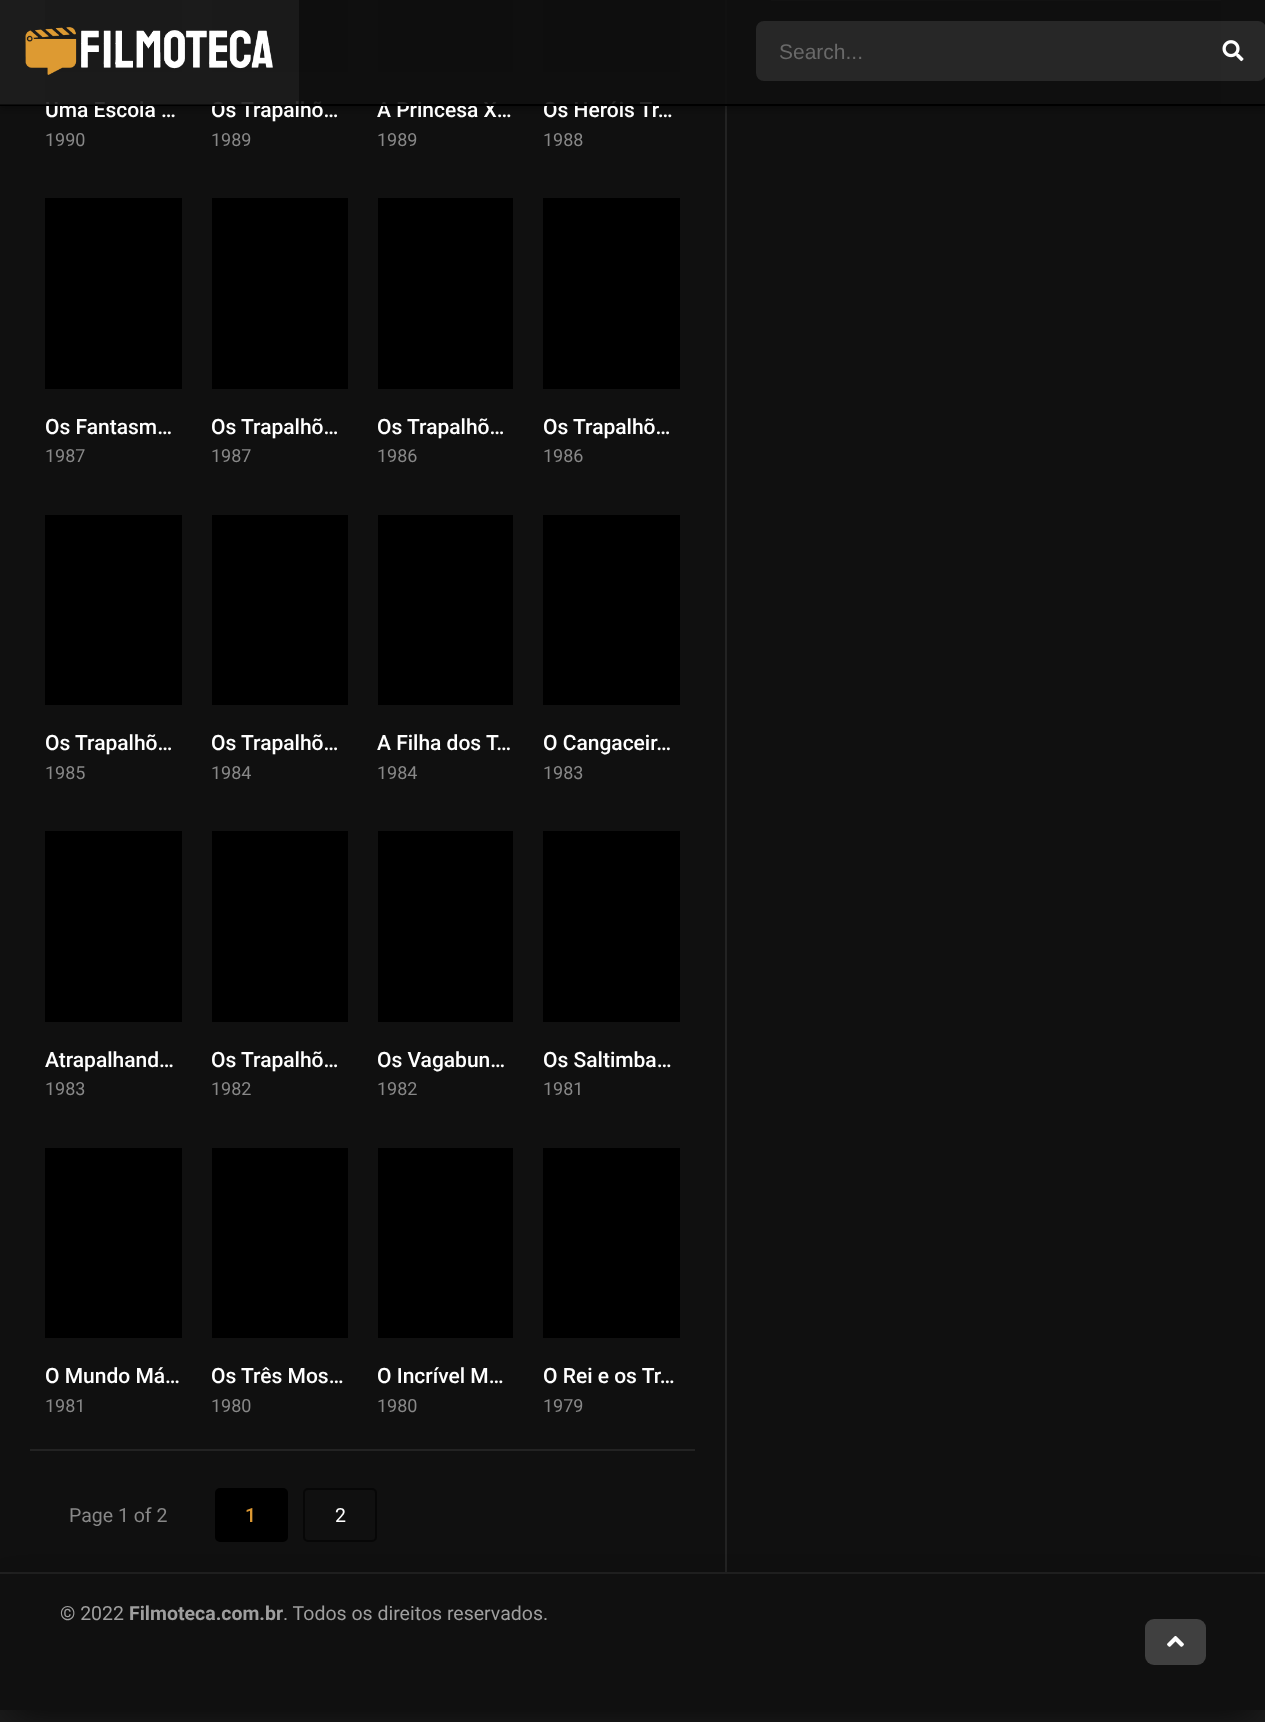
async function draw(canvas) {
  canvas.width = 1265
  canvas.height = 1722
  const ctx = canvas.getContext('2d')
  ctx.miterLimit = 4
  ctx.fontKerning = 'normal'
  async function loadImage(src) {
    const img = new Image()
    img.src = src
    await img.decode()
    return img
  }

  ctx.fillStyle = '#1c1c1c'
  ctx.fillRect(0, 0, 1265, 1722)
  ctx.fillStyle = '#101010'
  ctx.fillRect(0, 0, 1265, 1572)
  ctx.fillStyle = '#282828'
  ctx.fillRect(771, 0, 450, 1)
  ctx.fillStyle = '#232323'
  ctx.fillRect(725, 0, 2, 1572)
  ctx.fillStyle = '#000'
  ctx.fillRect(45, 0, 137, 72)
  ctx.fillRect(212, 0, 136, 72)
  ctx.fillRect(378, 0, 135, 72)
  ctx.fillRect(543, 0, 137, 72)
  ctx.save()
  ctx.beginPath()
  ctx.rect(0, 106, 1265, 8)
  ctx.clip()
  ctx.fillStyle = '#00000066'
  ctx.filter = 'blur(4px)'
  ctx.beginPath()
  ctx.rect(0, 2, 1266, 105)
  ctx.fill()
  ctx.filter = 'none'
  ctx.restore()
  ctx.font = '500 21px Roboto'
  ctx.fillStyle = '#fff'
  ctx.fillText('Uma Escola …', 45, 117)
  ctx.fillText('Os Trapalhõ…', 211, 117)
  ctx.fillText('A Princesa X…', 377, 117)
  ctx.fillText('Os Heróis Tr…', 543, 117)
  ctx.fillStyle = '#0f0f0fe6'
  ctx.fillRect(45, 0, 1176, 104)
  ctx.fillStyle = '#000'
  ctx.fillRect(0, 104, 1265, 2)
  ctx.fillStyle = '#ffffff0d'
  ctx.fillRect(0, 0, 299, 105)
  ctx.drawImage(await loadImage('image0.png'), 25, 27, 248, 48)
  ctx.fillStyle = '#ffffff1a'
  ctx.beginPath()
  ctx.roundRect(756, 21, 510, 60, 8)
  ctx.fill()
  ctx.font = '21px Liberation Sans'
  ctx.fillStyle = '#696969'
  ctx.fillText('Search...', 779, 59)
  ctx.drawImage(await loadImage('image1.png'), 1222, 40, 22, 22)
  ctx.fillStyle = '#212121'
  ctx.fillRect(0, 1572, 1265, 2)
  ctx.fillStyle = '#232323'
  ctx.fillRect(30, 1449, 665, 2)
  ctx.font = '18px Roboto'
  ctx.fillStyle = '#888'
  ctx.fillText('1990', 45, 146)
  ctx.fillText('1989', 211, 146)
  ctx.fillText('1989', 377, 146)
  ctx.fillText('1988', 543, 146)
  ctx.fillStyle = '#000'
  ctx.fillRect(45, 198, 137, 191)
  ctx.font = '500 21px Roboto'
  ctx.fillStyle = '#fff'
  ctx.fillText('Os Fantasm…', 45, 434)
  ctx.font = '18px Roboto'
  ctx.fillStyle = '#888'
  ctx.fillText('1987', 45, 462)
  ctx.fillStyle = '#000'
  ctx.fillRect(212, 198, 136, 191)
  ctx.font = '500 21px Roboto'
  ctx.fillStyle = '#fff'
  ctx.fillText('Os Trapalhõ…', 211, 434)
  ctx.font = '18px Roboto'
  ctx.fillStyle = '#888'
  ctx.fillText('1987', 211, 462)
  ctx.fillStyle = '#000'
  ctx.fillRect(378, 198, 135, 191)
  ctx.font = '500 21px Roboto'
  ctx.fillStyle = '#fff'
  ctx.fillText('Os Trapalhõ…', 377, 434)
  ctx.font = '18px Roboto'
  ctx.fillStyle = '#888'
  ctx.fillText('1986', 377, 462)
  ctx.fillStyle = '#000'
  ctx.fillRect(543, 198, 137, 191)
  ctx.font = '500 21px Roboto'
  ctx.fillStyle = '#fff'
  ctx.fillText('Os Trapalhõ…', 543, 434)
  ctx.font = '18px Roboto'
  ctx.fillStyle = '#888'
  ctx.fillText('1986', 543, 462)
  ctx.fillStyle = '#000'
  ctx.fillRect(45, 515, 137, 190)
  ctx.font = '500 21px Roboto'
  ctx.fillStyle = '#fff'
  ctx.fillText('Os Trapalhõ…', 45, 750)
  ctx.font = '18px Roboto'
  ctx.fillStyle = '#888'
  ctx.fillText('1985', 45, 779)
  ctx.fillStyle = '#000'
  ctx.fillRect(212, 515, 136, 190)
  ctx.font = '500 21px Roboto'
  ctx.fillStyle = '#fff'
  ctx.fillText('Os Trapalhõ…', 211, 750)
  ctx.font = '18px Roboto'
  ctx.fillStyle = '#888'
  ctx.fillText('1984', 211, 779)
  ctx.fillStyle = '#000'
  ctx.fillRect(378, 515, 135, 190)
  ctx.font = '500 21px Roboto'
  ctx.fillStyle = '#fff'
  ctx.fillText('A Filha dos T…', 377, 750)
  ctx.font = '18px Roboto'
  ctx.fillStyle = '#888'
  ctx.fillText('1984', 377, 779)
  ctx.fillStyle = '#000'
  ctx.fillRect(543, 515, 137, 190)
  ctx.font = '500 21px Roboto'
  ctx.fillStyle = '#fff'
  ctx.fillText('O Cangaceir…', 543, 750)
  ctx.font = '18px Roboto'
  ctx.fillStyle = '#888'
  ctx.fillText('1983', 543, 779)
  ctx.fillStyle = '#000'
  ctx.fillRect(45, 831, 137, 191)
  ctx.font = '500 21px Roboto'
  ctx.fillStyle = '#fff'
  ctx.fillText('Atrapalhand…', 45, 1067)
  ctx.font = '18px Roboto'
  ctx.fillStyle = '#888'
  ctx.fillText('1983', 45, 1095)
  ctx.fillStyle = '#000'
  ctx.fillRect(212, 831, 136, 191)
  ctx.font = '500 21px Roboto'
  ctx.fillStyle = '#fff'
  ctx.fillText('Os Trapalhõ…', 211, 1067)
  ctx.font = '18px Roboto'
  ctx.fillStyle = '#888'
  ctx.fillText('1982', 211, 1095)
  ctx.fillStyle = '#000'
  ctx.fillRect(378, 831, 135, 191)
  ctx.font = '500 21px Roboto'
  ctx.fillStyle = '#fff'
  ctx.fillText('Os Vagabun…', 377, 1067)
  ctx.font = '18px Roboto'
  ctx.fillStyle = '#888'
  ctx.fillText('1982', 377, 1095)
  ctx.fillStyle = '#000'
  ctx.fillRect(543, 831, 137, 191)
  ctx.font = '500 21px Roboto'
  ctx.fillStyle = '#fff'
  ctx.fillText('Os Saltimba…', 543, 1067)
  ctx.font = '18px Roboto'
  ctx.fillStyle = '#888'
  ctx.fillText('1981', 543, 1095)
  ctx.fillStyle = '#000'
  ctx.fillRect(45, 1148, 137, 190)
  ctx.font = '500 21px Roboto'
  ctx.fillStyle = '#fff'
  ctx.fillText('O Mundo Má…', 45, 1383)
  ctx.font = '18px Roboto'
  ctx.fillStyle = '#888'
  ctx.fillText('1981', 45, 1412)
  ctx.fillStyle = '#000'
  ctx.fillRect(212, 1148, 136, 190)
  ctx.font = '500 21px Roboto'
  ctx.fillStyle = '#fff'
  ctx.fillText('Os Três Mos…', 211, 1383)
  ctx.font = '18px Roboto'
  ctx.fillStyle = '#888'
  ctx.fillText('1980', 211, 1412)
  ctx.fillStyle = '#000'
  ctx.fillRect(378, 1148, 135, 190)
  ctx.font = '500 21px Roboto'
  ctx.fillStyle = '#fff'
  ctx.fillText('O Incrível M…', 377, 1383)
  ctx.font = '18px Roboto'
  ctx.fillStyle = '#888'
  ctx.fillText('1980', 377, 1412)
  ctx.fillStyle = '#000'
  ctx.fillRect(543, 1148, 137, 190)
  ctx.font = '500 21px Roboto'
  ctx.fillStyle = '#fff'
  ctx.fillText('O Rei e os Tr…', 543, 1383)
  ctx.font = '18px Roboto'
  ctx.fillStyle = '#888'
  ctx.fillText('1979', 543, 1412)
  ctx.font = '19.5px Roboto'
  ctx.fillText('Page 1 of 2', 69, 1522)
  ctx.fillStyle = '#000'
  ctx.beginPath()
  ctx.roundRect(216, 1489, 71, 52, 4)
  ctx.fill()
  ctx.strokeStyle = '#000'
  ctx.lineWidth = 2
  ctx.stroke()
  ctx.font = '500 19.5px Roboto'
  ctx.fillStyle = '#d93'
  ctx.fillText('1', 245, 1522)
  ctx.beginPath()
  ctx.roundRect(304, 1489, 72, 52, 4)
  ctx.strokeStyle = '#070707'
  ctx.stroke()
  ctx.font = '19.5px Roboto'
  ctx.fillStyle = '#fff'
  ctx.fillText('2', 335, 1522)
  ctx.fillStyle = '#000000b3'
  ctx.filter = 'blur(19px)'
  ctx.beginPath()
  ctx.rect(11, 1599, 1245, 116)
  ctx.fill()
  ctx.filter = 'none'
  ctx.fillStyle = '#101010'
  ctx.fillRect(0, 1574, 1265, 136)
  ctx.fillStyle = '#9f9f9f'
  ctx.fillText('© 2022', 60, 1620)
  ctx.font = 'bold 19.5px Roboto'
  ctx.fillText('Filmoteca.com.br', 129, 1620)
  ctx.font = '19.5px Roboto'
  ctx.fillText('. Todos os direitos reservados.', 283, 1620)
  ctx.fillStyle = '#404040'
  ctx.beginPath()
  ctx.roundRect(1145, 1619, 61, 46, 9)
  ctx.fill()
  ctx.drawImage(await loadImage('image2.png'), 1167, 1636, 17, 11)
}

draw(document.querySelector('canvas'))
